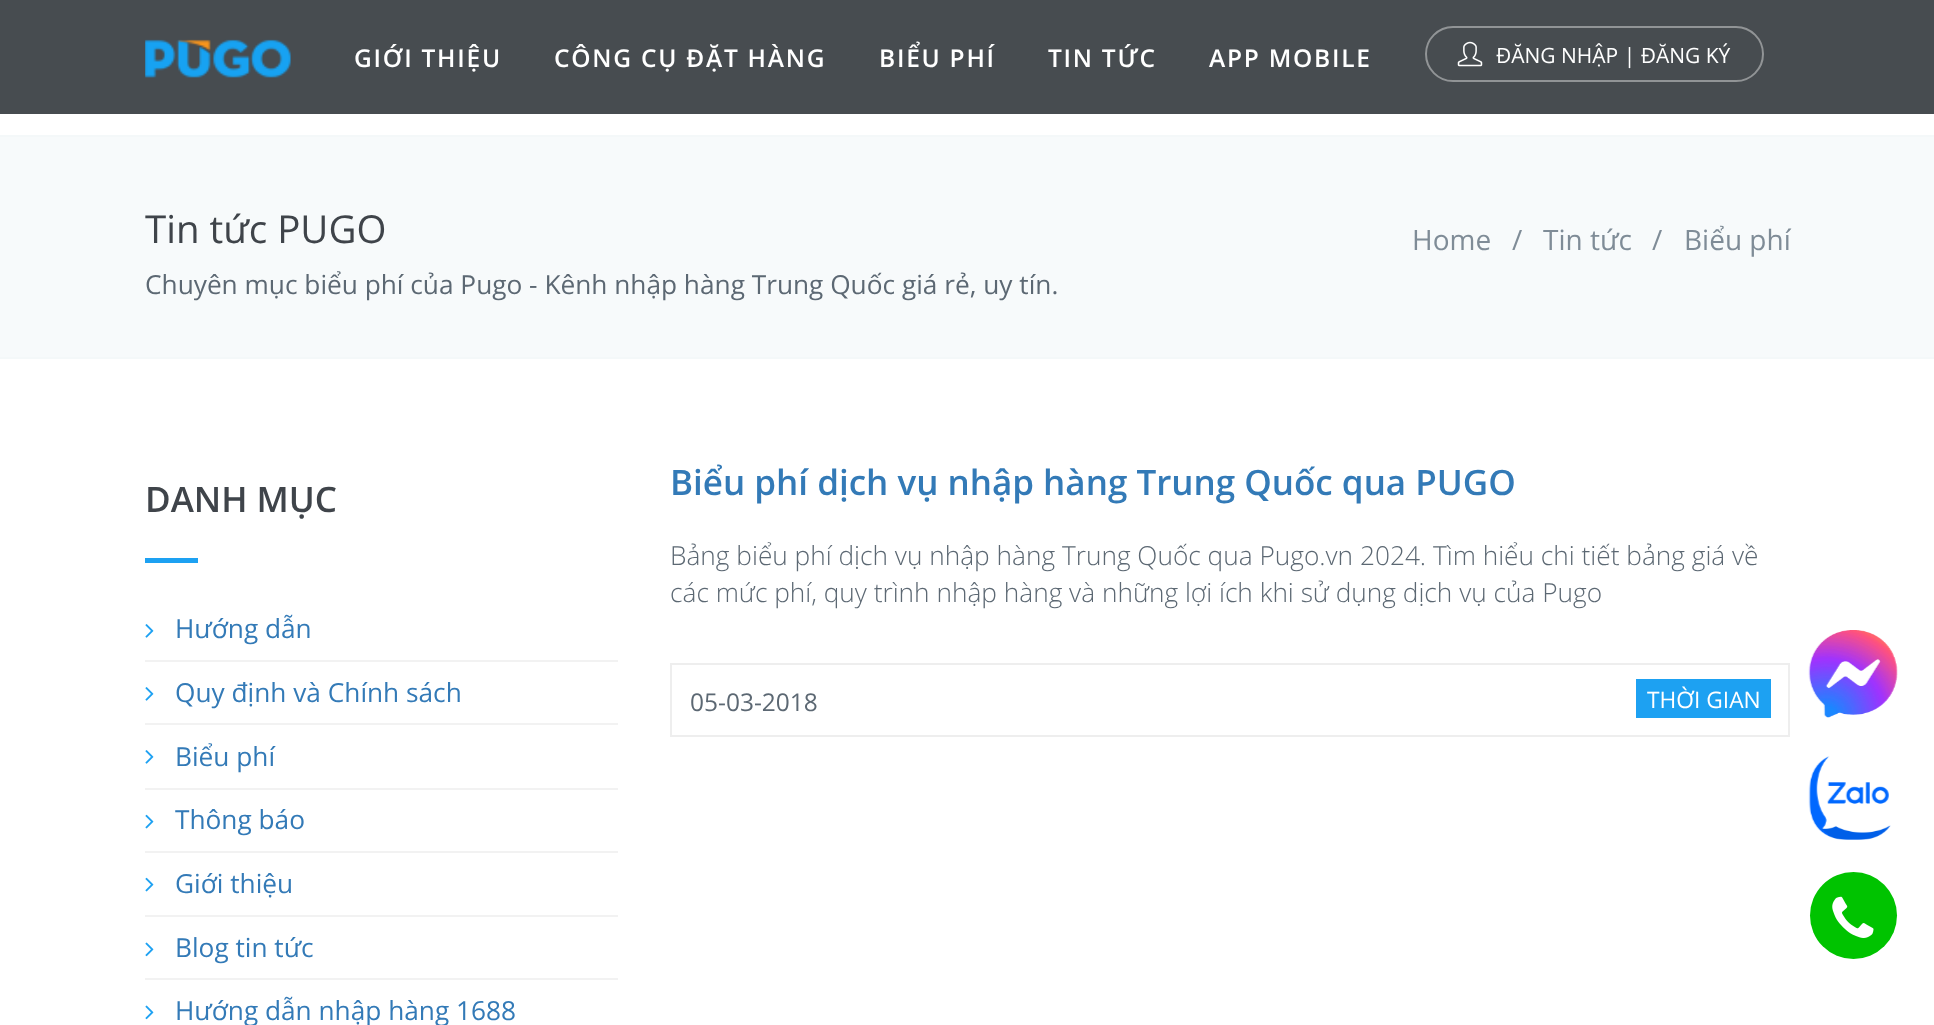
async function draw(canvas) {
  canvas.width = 1934
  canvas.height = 1025
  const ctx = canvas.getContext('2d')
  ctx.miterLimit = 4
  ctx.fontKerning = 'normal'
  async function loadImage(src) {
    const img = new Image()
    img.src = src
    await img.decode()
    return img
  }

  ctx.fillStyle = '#fff'
  ctx.fillRect(0, 0, 1934, 1025)
  ctx.fillStyle = '#474c50'
  ctx.fillRect(0, 0, 1934, 114)
  ctx.drawImage(await loadImage('image0.png'), 145, 39, 146, 39)
  ctx.letterSpacing = '1.75px'
  ctx.font = '600 24.5px Open Sans'
  ctx.fillStyle = '#fff'
  ctx.fillText('GIỚI THIỆU', 354, 67)
  ctx.fillText('CÔNG CỤ ĐẶT HÀNG', 554, 67)
  ctx.fillText('BIỂU PHÍ', 879, 67)
  ctx.fillText('TIN TỨC', 1048, 67)
  ctx.fillText('APP MOBILE', 1209, 67)
  ctx.beginPath()
  ctx.roundRect(1426, 27, 337, 54, 27)
  ctx.strokeStyle = '#919496'
  ctx.lineWidth = 2
  ctx.stroke()
  ctx.drawImage(await loadImage('image1.png'), 1457, 41, 26, 26)
  ctx.letterSpacing = '0px'
  ctx.font = '21px Open Sans'
  ctx.fillText('ĐĂNG NHẬP | ĐĂNG KÝ', 1496, 63)
  ctx.fillStyle = '#f7fafb'
  ctx.fillRect(0, 137, 1934, 220)
  ctx.fillStyle = '#f4f8f9'
  ctx.fillRect(0, 135, 1934, 2)
  ctx.fillRect(0, 357, 1934, 2)
  ctx.font = '38.5px Open Sans'
  ctx.fillStyle = '#3f444a'
  ctx.fillText('Tin tức PUGO', 145, 243)
  ctx.font = '26.25px Open Sans'
  ctx.fillStyle = '#5c6873'
  ctx.fillText('Chuyên mục biểu phí của Pugo - Kênh nhập hàng Trung Quốc giá rẻ, uy tín.', 145, 294)
  ctx.font = '28px Open Sans'
  ctx.fillStyle = '#7f8c97'
  ctx.fillText('Home', 1412, 250)
  ctx.fillText('/', 1512, 250)
  ctx.fillText('Tin tức', 1543, 250)
  ctx.fillText('/', 1652, 250)
  ctx.fillText('Biểu phí', 1684, 250)
  ctx.font = '600 35px Open Sans'
  ctx.fillStyle = '#3f444a'
  ctx.fillText('DANH MỤC', 145, 512)
  ctx.fillStyle = '#1da1f2'
  ctx.fillRect(145, 558, 53, 5)
  ctx.fillStyle = '#f2f2f2'
  ctx.fillRect(145, 660, 473, 2)
  ctx.drawImage(await loadImage('image2.png'), 145, 624, 9, 14)
  ctx.font = '26.25px Open Sans'
  ctx.fillStyle = '#337ab7'
  ctx.fillText('Hướng dẫn', 175, 638)
  ctx.fillStyle = '#f2f2f2'
  ctx.fillRect(145, 723, 473, 2)
  ctx.drawImage(await loadImage('image2.png'), 145, 687, 9, 14)
  ctx.fillStyle = '#337ab7'
  ctx.fillText('Quy định và Chính sách', 175, 702)
  ctx.fillStyle = '#f2f2f2'
  ctx.fillRect(145, 788, 473, 2)
  ctx.drawImage(await loadImage('image2.png'), 145, 750, 9, 14)
  ctx.fillStyle = '#337ab7'
  ctx.fillText('Biểu phí', 175, 766)
  ctx.fillStyle = '#f2f2f2'
  ctx.fillRect(145, 851, 473, 2)
  ctx.drawImage(await loadImage('image3.png'), 145, 814, 9, 15)
  ctx.fillStyle = '#337ab7'
  ctx.fillText('Thông báo', 175, 829)
  ctx.fillStyle = '#f2f2f2'
  ctx.fillRect(145, 915, 473, 2)
  ctx.drawImage(await loadImage('image3.png'), 145, 877, 9, 15)
  ctx.fillStyle = '#337ab7'
  ctx.fillText('Giới thiệu', 175, 893)
  ctx.fillStyle = '#f2f2f2'
  ctx.fillRect(145, 978, 473, 2)
  ctx.drawImage(await loadImage('image4.png'), 145, 942, 9, 15)
  ctx.fillStyle = '#337ab7'
  ctx.fillText('Blog tin tức', 175, 957)
  ctx.drawImage(await loadImage('image4.png'), 145, 1005, 9, 15)
  ctx.fillText('Hướng dẫn nhập hàng 1688', 175, 1020)
  ctx.font = '600 35px Open Sans'
  ctx.fillText('Biểu phí dịch vụ nhập hàng Trung Quốc qua PUGO', 670, 495)
  ctx.font = '300 26.25px Open Sans'
  ctx.fillStyle = '#5c6873'
  ctx.fillText('Bảng biểu phí dịch vụ nhập hàng Trung Quốc qua Pugo.vn 2024. Tìm hiểu chi tiết bảng giá về', 670, 565)
  ctx.fillText('các mức phí, quy trình nhập hàng và những lợi ích khi sử dụng dịch vụ của Pugo', 670, 602)
  ctx.strokeStyle = '#eee'
  ctx.strokeRect(671, 664, 1118, 72)
  ctx.font = '24.5px Open Sans'
  ctx.fillText('05-03-2018', 690, 711)
  ctx.fillStyle = '#1da1f2'
  ctx.fillRect(1636, 679, 135, 39)
  ctx.font = '22.75px Open Sans'
  ctx.fillStyle = '#fff'
  ctx.fillText('THỜI GIAN', 1647, 708)
  ctx.drawImage(await loadImage('image5.png'), 1808, 630, 90, 88)
  ctx.drawImage(await loadImage('image6.png'), 1808, 756, 83, 84)
  ctx.fillStyle = '#00c300'
  ctx.beginPath()
  ctx.arc(1853.5, 915.5, 43.5, 0, 2 * Math.PI)
  ctx.fill()
  ctx.drawImage(await loadImage('image7.png'), 1832, 896, 42, 42)
}

draw(document.querySelector('canvas'))
